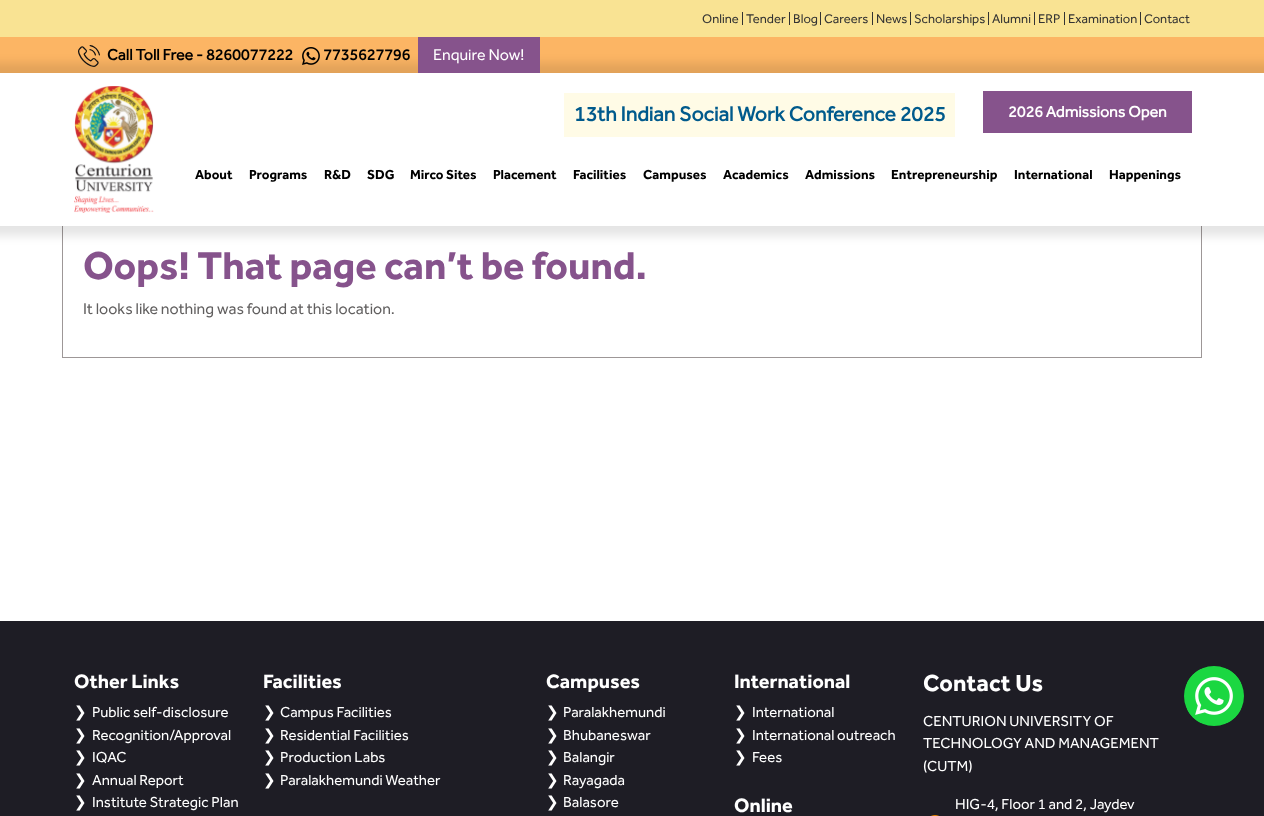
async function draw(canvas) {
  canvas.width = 1264
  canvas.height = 816
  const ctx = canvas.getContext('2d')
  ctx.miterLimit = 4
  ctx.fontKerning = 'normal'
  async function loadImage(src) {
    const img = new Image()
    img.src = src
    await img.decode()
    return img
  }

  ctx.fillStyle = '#fff'
  ctx.fillRect(0, 0, 1264, 816)
  ctx.fillStyle = '#f9e393'
  ctx.fillRect(0, 0, 1264, 37)
  ctx.font = '13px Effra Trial'
  ctx.fillStyle = '#333'
  ctx.fillText('Online', 702, 23)
  ctx.fillRect(742, 12, 1, 13)
  ctx.fillText('Tender', 746, 23)
  ctx.fillRect(789, 12, 1, 13)
  ctx.fillText('Blog', 793, 23)
  ctx.fillRect(820, 12, 1, 13)
  ctx.fillText('Careers', 824, 23)
  ctx.fillRect(872, 12, 1, 13)
  ctx.fillText('News', 876, 23)
  ctx.fillRect(910, 12, 1, 13)
  ctx.fillText('Scholarships', 914, 23)
  ctx.fillRect(988, 12, 1, 13)
  ctx.fillText('Alumni', 992, 23)
  ctx.fillRect(1034, 12, 1, 13)
  ctx.fillText('ERP', 1038, 23)
  ctx.fillRect(1064, 12, 1, 13)
  ctx.fillText('Examination', 1068, 23)
  ctx.fillRect(1140, 12, 1, 13)
  ctx.fillText('Contact', 1144, 23)
  ctx.fillStyle = '#fcb564'
  ctx.fillRect(0, 37, 1264, 36)
  ctx.drawImage(await loadImage('image0.png'), 78, 45, 22, 22)
  ctx.font = 'bold 16px Effra Trial'
  ctx.fillStyle = '#000'
  ctx.fillText('Call Toll Free - 8260077222', 107, 60)
  ctx.drawImage(await loadImage('image1.png'), 302, 47, 18, 18)
  ctx.fillText('7735627796', 323, 60)
  ctx.strokeStyle = '#9d9797'
  ctx.strokeRect(62.5, 220.5, 1139, 137)
  ctx.fillStyle = '#0000001a'
  ctx.filter = 'blur(5px)'
  ctx.beginPath()
  ctx.rect(-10, 63, 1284, 173)
  ctx.fill()
  ctx.filter = 'none'
  ctx.fillStyle = '#86538c'
  ctx.fillRect(418, 37, 122, 36)
  ctx.font = '16px Effra Trial'
  ctx.fillStyle = '#fff'
  ctx.fillText('Enquire Now!', 433, 60)
  ctx.fillRect(0, 73, 1264, 153)
  ctx.drawImage(await loadImage('image2.png'), 74, 86, 80, 127)
  ctx.fillStyle = '#fffbe6'
  ctx.fillRect(564, 93, 391, 44)
  ctx.font = 'bold 21.2px Effra Trial'
  ctx.fillStyle = '#005a8c'
  ctx.fillText('13th Indian Social Work Conference 2025', 574, 121)
  ctx.fillStyle = '#86538c'
  ctx.fillRect(983, 91, 209, 42)
  ctx.font = 'bold 16px Effra Trial'
  ctx.fillStyle = '#fff'
  ctx.fillText('2026 Admissions Open', 1008, 117)
  ctx.font = 'bold 13.5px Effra'
  ctx.fillStyle = '#000'
  ctx.fillText('About', 195, 179)
  ctx.fillText('Programs', 249, 179)
  ctx.fillText('R&D', 324, 179)
  ctx.fillText('SDG', 367, 179)
  ctx.fillText('Mirco Sites', 410, 179)
  ctx.fillText('Placement', 493, 179)
  ctx.fillText('Facilities', 573, 179)
  ctx.fillText('Campuses', 643, 179)
  ctx.fillText('Academics', 723, 179)
  ctx.fillText('Admissions', 805, 179)
  ctx.fillText('Entrepreneurship', 891, 179)
  ctx.fillText('International', 1014, 179)
  ctx.fillText('Happenings', 1109, 179)
  ctx.font = 'bold 40px Effra'
  ctx.fillStyle = '#86538c'
  ctx.fillText('Oops! That page can’t be found.', 83, 279)
  ctx.font = '16px Effra Trial'
  ctx.fillStyle = '#615f5f'
  ctx.fillText('It looks like nothing was found at this location.', 83, 314)
  ctx.fillStyle = '#1e1d25'
  ctx.fillRect(0, 621, 1264, 195)
  ctx.font = 'bold 20px Effra'
  ctx.fillStyle = '#fff'
  ctx.fillText('Other Links', 74, 688)
  ctx.font = '15px DejaVu Sans'
  ctx.fillText('❯', 74, 717)
  ctx.font = '15px Effra Trial'
  ctx.fillText('Public self-disclosure', 92, 717)
  ctx.font = '15px DejaVu Sans'
  ctx.fillText('❯', 74, 740)
  ctx.font = '15px Effra Trial'
  ctx.fillText('Recognition/Approval', 92, 740)
  ctx.font = '15px DejaVu Sans'
  ctx.fillText('❯', 74, 762)
  ctx.font = '15px Effra Trial'
  ctx.fillText('IQAC', 92, 762)
  ctx.font = '15px DejaVu Sans'
  ctx.fillText('❯', 74, 785)
  ctx.font = '15px Effra Trial'
  ctx.fillText('Annual Report', 92, 785)
  ctx.font = '15px DejaVu Sans'
  ctx.fillText('❯', 74, 807)
  ctx.font = '15px Effra Trial'
  ctx.fillText('Institute Strategic Plan', 92, 807)
  ctx.font = 'bold 20px Effra'
  ctx.fillText('Facilities', 263, 688)
  ctx.font = '15px DejaVu Sans'
  ctx.fillText('❯', 263, 717)
  ctx.font = '15px Effra Trial'
  ctx.fillText('Campus Facilities', 280, 717)
  ctx.font = '15px DejaVu Sans'
  ctx.fillText('❯', 263, 740)
  ctx.font = '15px Effra Trial'
  ctx.fillText('Residential Facilities', 280, 740)
  ctx.font = '15px DejaVu Sans'
  ctx.fillText('❯', 263, 762)
  ctx.font = '15px Effra Trial'
  ctx.fillText('Production Labs', 280, 762)
  ctx.font = '15px DejaVu Sans'
  ctx.fillText('❯', 263, 785)
  ctx.font = '15px Effra Trial'
  ctx.fillText('Paralakhemundi Weather', 280, 785)
  ctx.font = 'bold 20px Effra'
  ctx.fillText('Campuses', 546, 688)
  ctx.font = '15px DejaVu Sans'
  ctx.fillText('❯', 546, 717)
  ctx.font = '15px Effra Trial'
  ctx.fillText('Paralakhemundi', 563, 717)
  ctx.font = '15px DejaVu Sans'
  ctx.fillText('❯', 546, 740)
  ctx.font = '15px Effra Trial'
  ctx.fillText('Bhubaneswar', 563, 740)
  ctx.font = '15px DejaVu Sans'
  ctx.fillText('❯', 546, 762)
  ctx.font = '15px Effra Trial'
  ctx.fillText('Balangir', 563, 762)
  ctx.font = '15px DejaVu Sans'
  ctx.fillText('❯', 546, 785)
  ctx.font = '15px Effra Trial'
  ctx.fillText('Rayagada', 563, 785)
  ctx.font = '15px DejaVu Sans'
  ctx.fillText('❯', 546, 807)
  ctx.font = '15px Effra Trial'
  ctx.fillText('Balasore', 563, 807)
  ctx.font = 'bold 20px Effra'
  ctx.fillText('International', 734, 688)
  ctx.font = '15px DejaVu Sans'
  ctx.fillText('❯', 734, 717)
  ctx.font = '15px Effra Trial'
  ctx.fillText('International', 752, 717)
  ctx.font = '15px DejaVu Sans'
  ctx.fillText('❯', 734, 740)
  ctx.font = '15px Effra Trial'
  ctx.fillText('International outreach', 752, 740)
  ctx.font = '15px DejaVu Sans'
  ctx.fillText('❯', 734, 762)
  ctx.font = '15px Effra Trial'
  ctx.fillText('Fees', 752, 762)
  ctx.font = 'bold 20px Effra'
  ctx.fillText('Online', 734, 812)
  ctx.font = 'bold 24px Effra'
  ctx.fillText('Contact Us', 923, 691)
  ctx.font = '15px Effra Trial'
  ctx.fillText('CENTURION UNIVERSITY OF', 923, 726)
  ctx.fillText('TECHNOLOGY AND MANAGEMENT', 923, 748)
  ctx.fillText('(CUTM)', 923, 771)
  ctx.fillText('HIG-4, Floor 1 and 2, Jaydev', 955, 809)
  ctx.drawImage(await loadImage('image3.png'), 931, 815, 8, 1)
  ctx.fillStyle = '#1bd741'
  ctx.beginPath()
  ctx.arc(1214, 696, 30, 0, 2 * Math.PI)
  ctx.fill()
  ctx.drawImage(await loadImage('image4.png'), 1187, 669, 54, 54)
}

draw(document.querySelector('canvas'))
